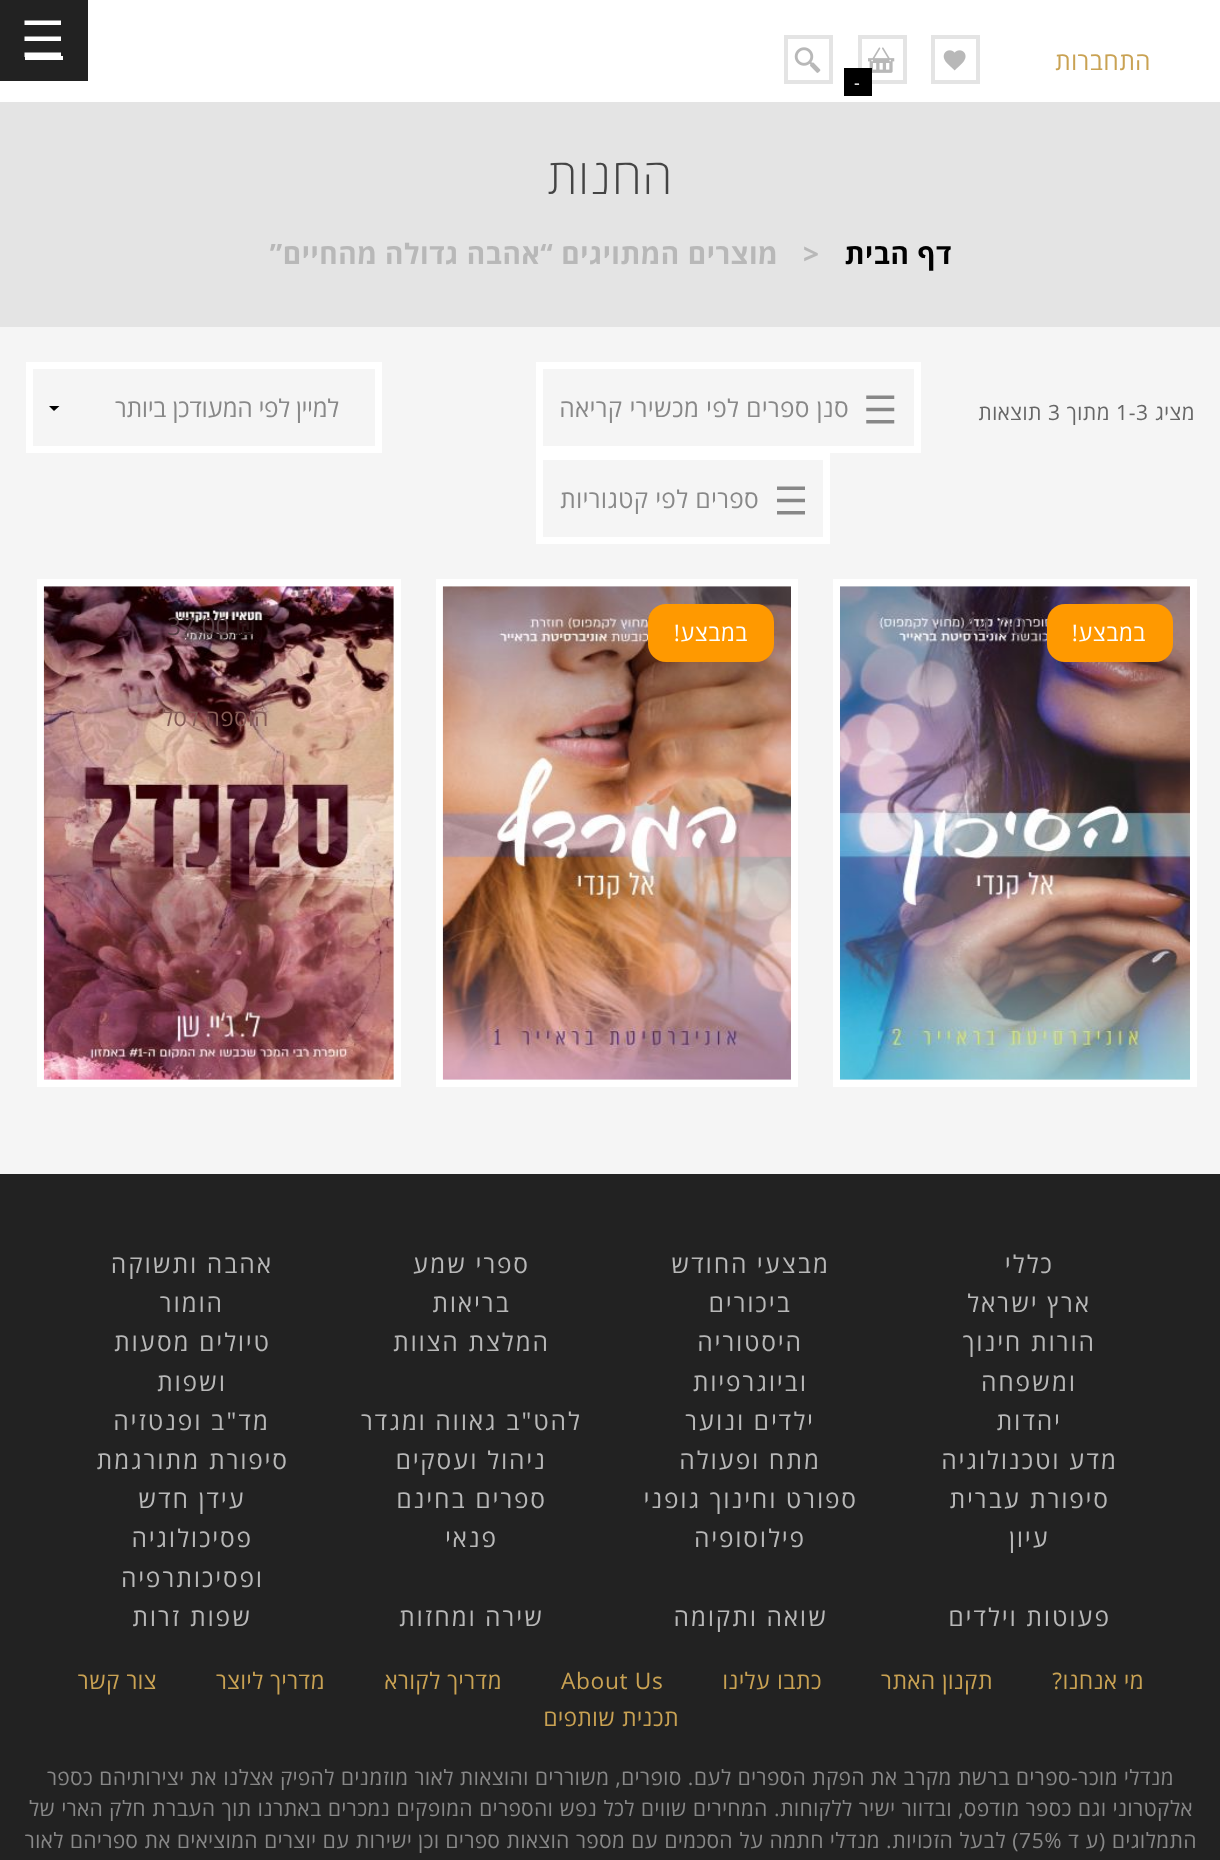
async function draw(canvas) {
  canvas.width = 1220
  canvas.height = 1860
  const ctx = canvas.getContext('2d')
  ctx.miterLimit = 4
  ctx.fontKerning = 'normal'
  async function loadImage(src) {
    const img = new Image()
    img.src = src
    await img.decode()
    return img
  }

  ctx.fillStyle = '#f5f5f5'
  ctx.fillRect(0, 0, 1220, 1860)
  ctx.fillStyle = '#fff'
  ctx.fillRect(0, 0, 1220, 102)
  ctx.fillStyle = '#222'
  ctx.fillRect(0, 0, 88, 81)
  ctx.fillStyle = '#fff'
  ctx.fillRect(25, 56, 38, 4)
  ctx.beginPath()
  ctx.moveTo(24.5, 20.5)
  ctx.lineTo(61, 20.5)
  ctx.lineTo(61, 25)
  ctx.lineTo(24.5, 25)
  ctx.closePath()
  ctx.moveTo(24.5, 36.5)
  ctx.lineTo(61, 36.5)
  ctx.lineTo(61, 41)
  ctx.lineTo(24.5, 41)
  ctx.closePath()
  ctx.moveTo(24.5, 52.5)
  ctx.lineTo(61, 52.5)
  ctx.lineTo(61, 57)
  ctx.lineTo(24.5, 57)
  ctx.closePath()
  ctx.fill()
  ctx.letterSpacing = '0.63px'
  ctx.direction = 'rtl'
  ctx.font = '24.5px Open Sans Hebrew'
  ctx.fillStyle = '#c9a253'
  ctx.fillText('התחברות', 1151, 70)
  ctx.strokeStyle = '#e4e4e4'
  ctx.lineWidth = 4
  ctx.strokeRect(933, 37, 45, 45)
  ctx.drawImage(await loadImage('image0.png'), 943, 50, 23, 21)
  ctx.strokeRect(860, 37, 45, 45)
  ctx.drawImage(await loadImage('image1.png'), 868, 47, 27, 26)
  ctx.fillStyle = '#000'
  ctx.fillRect(844, 68, 28, 28)
  ctx.direction = 'ltr'
  ctx.font = '18px Open Sans Hebrew'
  ctx.fillStyle = '#fff'
  ctx.fillText('-', 854, 89)
  ctx.strokeRect(786, 37, 45, 45)
  ctx.drawImage(await loadImage('image2.png'), 794, 47, 27, 26)
  ctx.fillStyle = '#e4e4e4'
  ctx.fillRect(0, 102, 1220, 225)
  ctx.direction = 'rtl'
  ctx.font = '300 49px Open Sans Hebrew'
  ctx.fillStyle = '#444'
  ctx.fillText('החנות', 673, 194)
  ctx.font = 'bold 28px Open Sans Hebrew'
  ctx.fillStyle = '#000'
  ctx.fillText('דף הבית', 952, 264)
  ctx.direction = 'ltr'
  ctx.fillStyle = '#b8b8b8'
  ctx.fillText('>', 803, 264)
  ctx.direction = 'rtl'
  ctx.fillText('מוצרים המתויגים “אהבה גדולה מהחיים”', 778, 264)
  ctx.font = '21px Open Sans Hebrew'
  ctx.fillStyle = '#666'
  ctx.fillText('מציג', 1195, 420)
  ctx.direction = 'ltr'
  ctx.fillText('1-3', 1116, 420)
  ctx.direction = 'rtl'
  ctx.fillText('מתוך', 1110, 420)
  ctx.direction = 'ltr'
  ctx.fillText('3', 1048, 420)
  ctx.direction = 'rtl'
  ctx.fillText('תוצאות', 1042, 420)
  ctx.strokeStyle = '#fff'
  ctx.lineWidth = 7
  ctx.strokeRect(539.5, 365.5, 378, 84)
  ctx.drawImage(await loadImage('image3.png'), 866, 395, 29, 29)
  ctx.font = '24.5px Open Sans Hebrew'
  ctx.fillStyle = '#888'
  ctx.fillText('סנן ספרים לפי מכשירי קריאה', 849, 417)
  ctx.strokeRect(539.5, 456.5, 287, 84)
  ctx.drawImage(await loadImage('image4.png'), 777, 486, 28, 29)
  ctx.fillText('ספרים לפי קטגוריות', 759, 508)
  ctx.fillStyle = '#000'
  ctx.beginPath()
  ctx.moveTo(59.5, 406)
  ctx.lineTo(54, 411)
  ctx.lineTo(49, 406)
  ctx.closePath()
  ctx.fill()
  ctx.strokeRect(29.5, 365.5, 349, 84)
  ctx.letterSpacing = '0px'
  ctx.fillStyle = '#888'
  ctx.fillText('למיין לפי המעודכן ביותר', 339, 417)
  ctx.strokeRect(836.5, 582.5, 357, 501)
  ctx.drawImage(await loadImage('image5.png'), 840, 586, 350, 494)
  ctx.fillStyle = '#f90'
  ctx.beginPath()
  ctx.roundRect(1047, 604, 126, 58, 18)
  ctx.fill()
  ctx.letterSpacing = '0.63px'
  ctx.font = '22.75px Open Sans Hebrew'
  ctx.fillStyle = '#fff'
  ctx.fillText('במבצע!', 1146, 641)
  ctx.letterSpacing = '0px'
  ctx.direction = 'ltr'
  ctx.font = '24.5px Open Sans Hebrew'
  ctx.fillStyle = '#534753'
  ctx.fillText('44.00', 963, 635)
  ctx.strokeRect(439.5, 582.5, 355, 501)
  ctx.drawImage(await loadImage('image6.png'), 442, 586, 349, 494)
  ctx.fillStyle = '#f90'
  ctx.beginPath()
  ctx.roundRect(648, 604, 126, 58, 18)
  ctx.fill()
  ctx.letterSpacing = '0.63px'
  ctx.direction = 'rtl'
  ctx.font = '22.75px Open Sans Hebrew'
  ctx.fillStyle = '#fff'
  ctx.fillText('במבצע!', 748, 641)
  ctx.strokeRect(40.5, 582.5, 357, 501)
  ctx.drawImage(await loadImage('image7.png'), 43, 586, 351, 494)
  ctx.letterSpacing = '0px'
  ctx.direction = 'ltr'
  ctx.font = '24.5px Liberation Sans'
  ctx.fillStyle = '#281415'
  ctx.fillText('₪', 235, 635)
  ctx.font = '24.5px Open Sans Hebrew'
  ctx.fillStyle = '#533d42'
  ctx.fillText('37.00', 167, 635)
  ctx.letterSpacing = '0.75px'
  ctx.direction = 'rtl'
  ctx.font = '22.75px Open Sans Hebrew'
  ctx.fillStyle = '#855c57'
  ctx.fillText('הוספה לסל', 269, 726)
  ctx.fillStyle = '#222'
  ctx.fillRect(0, 1174, 1220, 686)
  ctx.letterSpacing = '2.25px'
  ctx.font = '24.5px Open Sans Hebrew'
  ctx.fillStyle = '#b8b8b8'
  ctx.fillText('כללי', 1054, 1273)
  ctx.fillText('מבצעי החודש', 830, 1273)
  ctx.fillText('ספרי שמע', 530, 1273)
  ctx.fillText('אהבה ותשוקה', 273, 1273)
  ctx.fillText('ארץ ישראל', 1091, 1312)
  ctx.fillText('ביכורים', 792, 1312)
  ctx.fillText('בריאות', 511, 1312)
  ctx.fillText('הומור', 224, 1312)
  ctx.fillText('הורות חינוך', 1096, 1351)
  ctx.fillText('ומשפחה', 1077, 1391)
  ctx.fillText('היסטוריה', 803, 1351)
  ctx.fillText('וביוגרפיות', 808, 1391)
  ctx.fillText('המלצת הצוות', 550, 1351)
  ctx.fillText('טיולים מסעות', 271, 1351)
  ctx.fillText('ושפות', 227, 1391)
  ctx.fillText('יהדות', 1062, 1430)
  ctx.fillText('ילדים ונוער', 815, 1430)
  ctx.fillText('להט"ב גאווה ומגדר', 582, 1430)
  ctx.fillText('מד"ב ופנטזיה', 270, 1430)
  ctx.fillText('מדע וטכנולוגיה', 1118, 1469)
  ctx.fillText('מתח ופעולה', 821, 1469)
  ctx.fillText('ניהול ועסקים', 547, 1469)
  ctx.fillText('סיפורת מתורגמת', 289, 1469)
  ctx.fillText('סיפורת עברית', 1110, 1508)
  ctx.fillText('ספורט וחינוך גופני', 858, 1508)
  ctx.fillText('ספרים בחינם', 547, 1508)
  ctx.fillText('עידן חדש', 246, 1508)
  ctx.fillText('עיון', 1050, 1547)
  ctx.fillText('פילוסופיה', 806, 1547)
  ctx.fillText('פנאי', 498, 1547)
  ctx.fillText('פסיכולוגיה', 253, 1547)
  ctx.fillText('ופסיכותרפיה', 264, 1587)
  ctx.fillText('פעוטות וילדים', 1111, 1626)
  ctx.fillText('שואה ותקומה', 828, 1626)
  ctx.fillText('שירה ומחזות', 544, 1626)
  ctx.fillText('שפות זרות', 252, 1626)
  ctx.letterSpacing = '0.63px'
  ctx.font = '22.75px Open Sans Hebrew'
  ctx.fillStyle = '#c9a253'
  ctx.fillText('מי אנחנו?', 1144, 1689)
  ctx.fillText('תקנון האתר', 993, 1689)
  ctx.fillText('כתבו עלינו', 822, 1689)
  ctx.direction = 'ltr'
  ctx.fillText('About Us', 561, 1689)
  ctx.direction = 'rtl'
  ctx.fillText('מדריך לקורא', 502, 1689)
  ctx.fillText('מדריך ליוצר', 325, 1689)
  ctx.fillText('צור קשר', 157, 1689)
  ctx.fillText('תכנית שותפים', 679, 1726)
  ctx.font = '21px Open Sans Hebrew'
  ctx.fillStyle = '#888'
  ctx.fillText('מנדלי מוכר-ספרים ברשת מקרב את הפקת הספרים לעם. סופרים, משוררים והוצאות לאור מוזמנים להפיק אצלנו', 1174, 1785)
  ctx.fillText('את יצירותיהם כספר', 217, 1785)
  ctx.fillText('אלקטרוני וגם כספר מודפס, ובדוור ישיר ללקוחות. המחירים שווים לכל נפש והספרים', 1193, 1816)
  ctx.fillText('המופקים נמכרים באתרנו תוך העברת חלק הארי של', 473, 1816)
  ctx.fillText('התמלוגים (ע ד', 1197, 1848)
  ctx.direction = 'ltr'
  ctx.fillText('75%', 1019, 1848)
  ctx.direction = 'rtl'
  ctx.fillText(') לבעל הזכויות. מנדלי חתמה על', 1019, 1848)
  ctx.fillText('הסכמים עם מספר הוצאות ספרים וכן ישירות עם יוצרים המוציאים את ספריהם לאור', 733, 1848)
}

draw(document.querySelector('canvas'))
